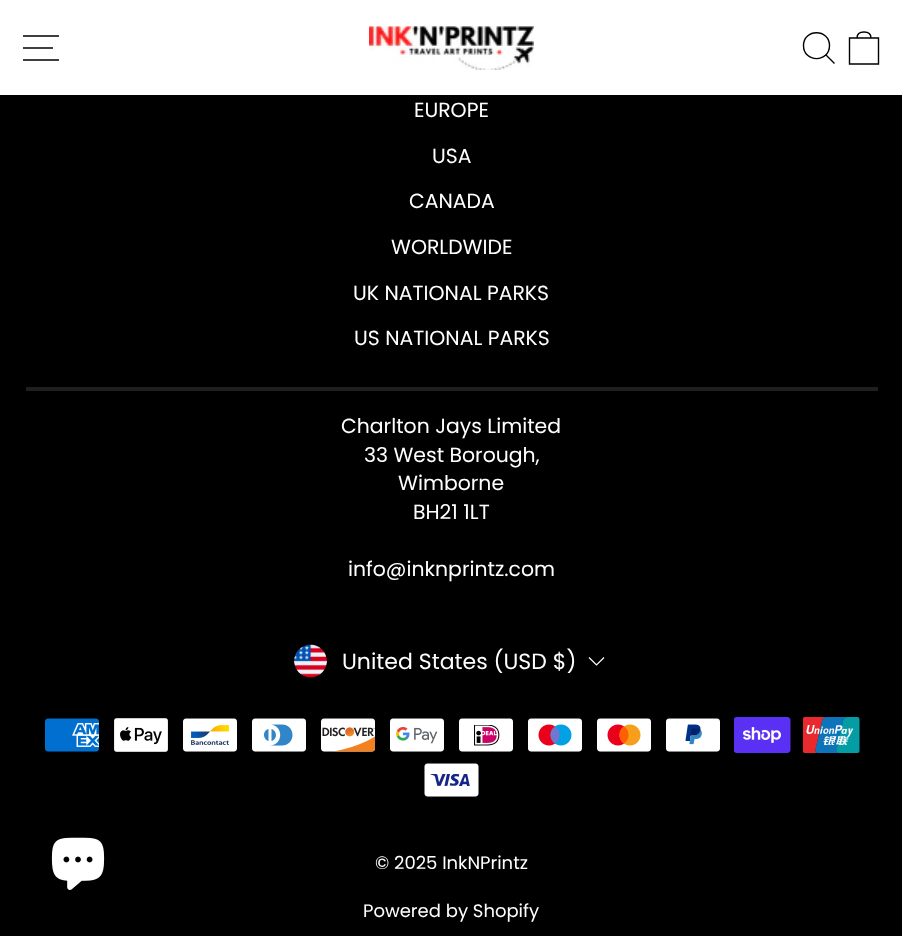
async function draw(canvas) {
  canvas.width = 902
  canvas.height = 936
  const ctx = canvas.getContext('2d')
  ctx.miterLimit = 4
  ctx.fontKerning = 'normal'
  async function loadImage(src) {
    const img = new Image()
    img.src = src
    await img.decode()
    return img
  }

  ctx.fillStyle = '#000'
  ctx.fillRect(0, 0, 902, 936)
  ctx.drawImage(await loadImage('image0.png'), 51, 837, 54, 53)
  ctx.fillStyle = '#fff'
  ctx.fillRect(0, 0, 902, 95)
  ctx.beginPath()
  ctx.moveTo(23, 36)
  ctx.lineTo(59, 36)
  ctx.moveTo(23, 48)
  ctx.lineTo(53, 48)
  ctx.moveTo(23, 60)
  ctx.lineTo(59, 60)
  ctx.strokeStyle = '#000'
  ctx.lineWidth = 1.4
  ctx.stroke()
  ctx.drawImage(await loadImage('image1.png'), 369, 26, 165, 44)
  ctx.beginPath()
  ctx.moveTo(829.5, 45.5)
  ctx.bezierCurveTo(829.5, 63, 803.5, 63, 803.5, 45.5)
  ctx.bezierCurveTo(803.5, 28.5, 829.5, 28.5, 829.5, 45.5)
  ctx.closePath()
  ctx.moveTo(834.5, 63.5)
  ctx.lineTo(826, 55)
  ctx.stroke()
  ctx.beginPath()
  ctx.moveTo(849.5, 38)
  ctx.lineTo(878.5, 38)
  ctx.lineTo(878.5, 64)
  ctx.lineTo(849.5, 64)
  ctx.closePath()
  ctx.moveTo(857, 38)
  ctx.bezierCurveTo(857, 33, 860, 32, 864, 32)
  ctx.bezierCurveTo(868, 32, 871, 33, 871, 38)
  ctx.stroke()
  ctx.font = '20.4px Poppins'
  ctx.fillText('EUROPE', 414, 117)
  ctx.fillText('USA', 432, 163)
  ctx.fillText('CANADA', 409, 208)
  ctx.fillText('WORLDWIDE', 391, 254)
  ctx.fillText('UK NATIONAL PARKS', 353, 300)
  ctx.fillText('US NATIONAL PARKS', 354, 345)
  ctx.fillStyle = '#1f1f1f'
  ctx.fillRect(26, 387, 852, 4)
  ctx.fillStyle = '#fff'
  ctx.fillText('Charlton Jays Limited', 341, 433)
  ctx.fillText('33 West Borough,', 364, 462)
  ctx.fillText('Wimborne', 398, 490)
  ctx.fillText('BH21 1LT', 413, 519)
  ctx.fillText('info@inknprintz.com', 348, 576)
  ctx.drawImage(await loadImage('image2.png'), 294, 644, 33, 34)
  ctx.font = '22px Poppins'
  ctx.fillText('United States (USD $)', 342, 669)
  ctx.beginPath()
  ctx.moveTo(589, 657.5)
  ctx.lineTo(596.5, 665)
  ctx.lineTo(604, 657.5)
  ctx.strokeStyle = '#fff'
  ctx.lineWidth = 1.2
  ctx.stroke()
  ctx.drawImage(await loadImage('image3.png'), 45, 718, 54, 34)
  ctx.drawImage(await loadImage('image4.png'), 114, 718, 54, 34)
  ctx.drawImage(await loadImage('image5.png'), 183, 718, 54, 34)
  ctx.drawImage(await loadImage('image6.png'), 252, 718, 54, 34)
  ctx.drawImage(await loadImage('image7.png'), 321, 718, 55, 34)
  ctx.drawImage(await loadImage('image8.png'), 390, 718, 54, 34)
  ctx.drawImage(await loadImage('image9.png'), 459, 718, 54, 34)
  ctx.drawImage(await loadImage('image10.png'), 528, 718, 54, 34)
  ctx.drawImage(await loadImage('image11.png'), 597, 718, 54, 34)
  ctx.drawImage(await loadImage('image12.png'), 666, 718, 54, 34)
  ctx.drawImage(await loadImage('image13.png'), 734, 717, 57, 36)
  ctx.drawImage(await loadImage('image14.png'), 803, 717, 57, 36)
  ctx.drawImage(await loadImage('image15.png'), 424, 763, 55, 34)
  ctx.font = '18px Poppins'
  ctx.fillText('© 2025 InkNPrintz', 375, 869)
  ctx.fillText('Powered by Shopify', 363, 917)
}

draw(document.querySelector('canvas'))
